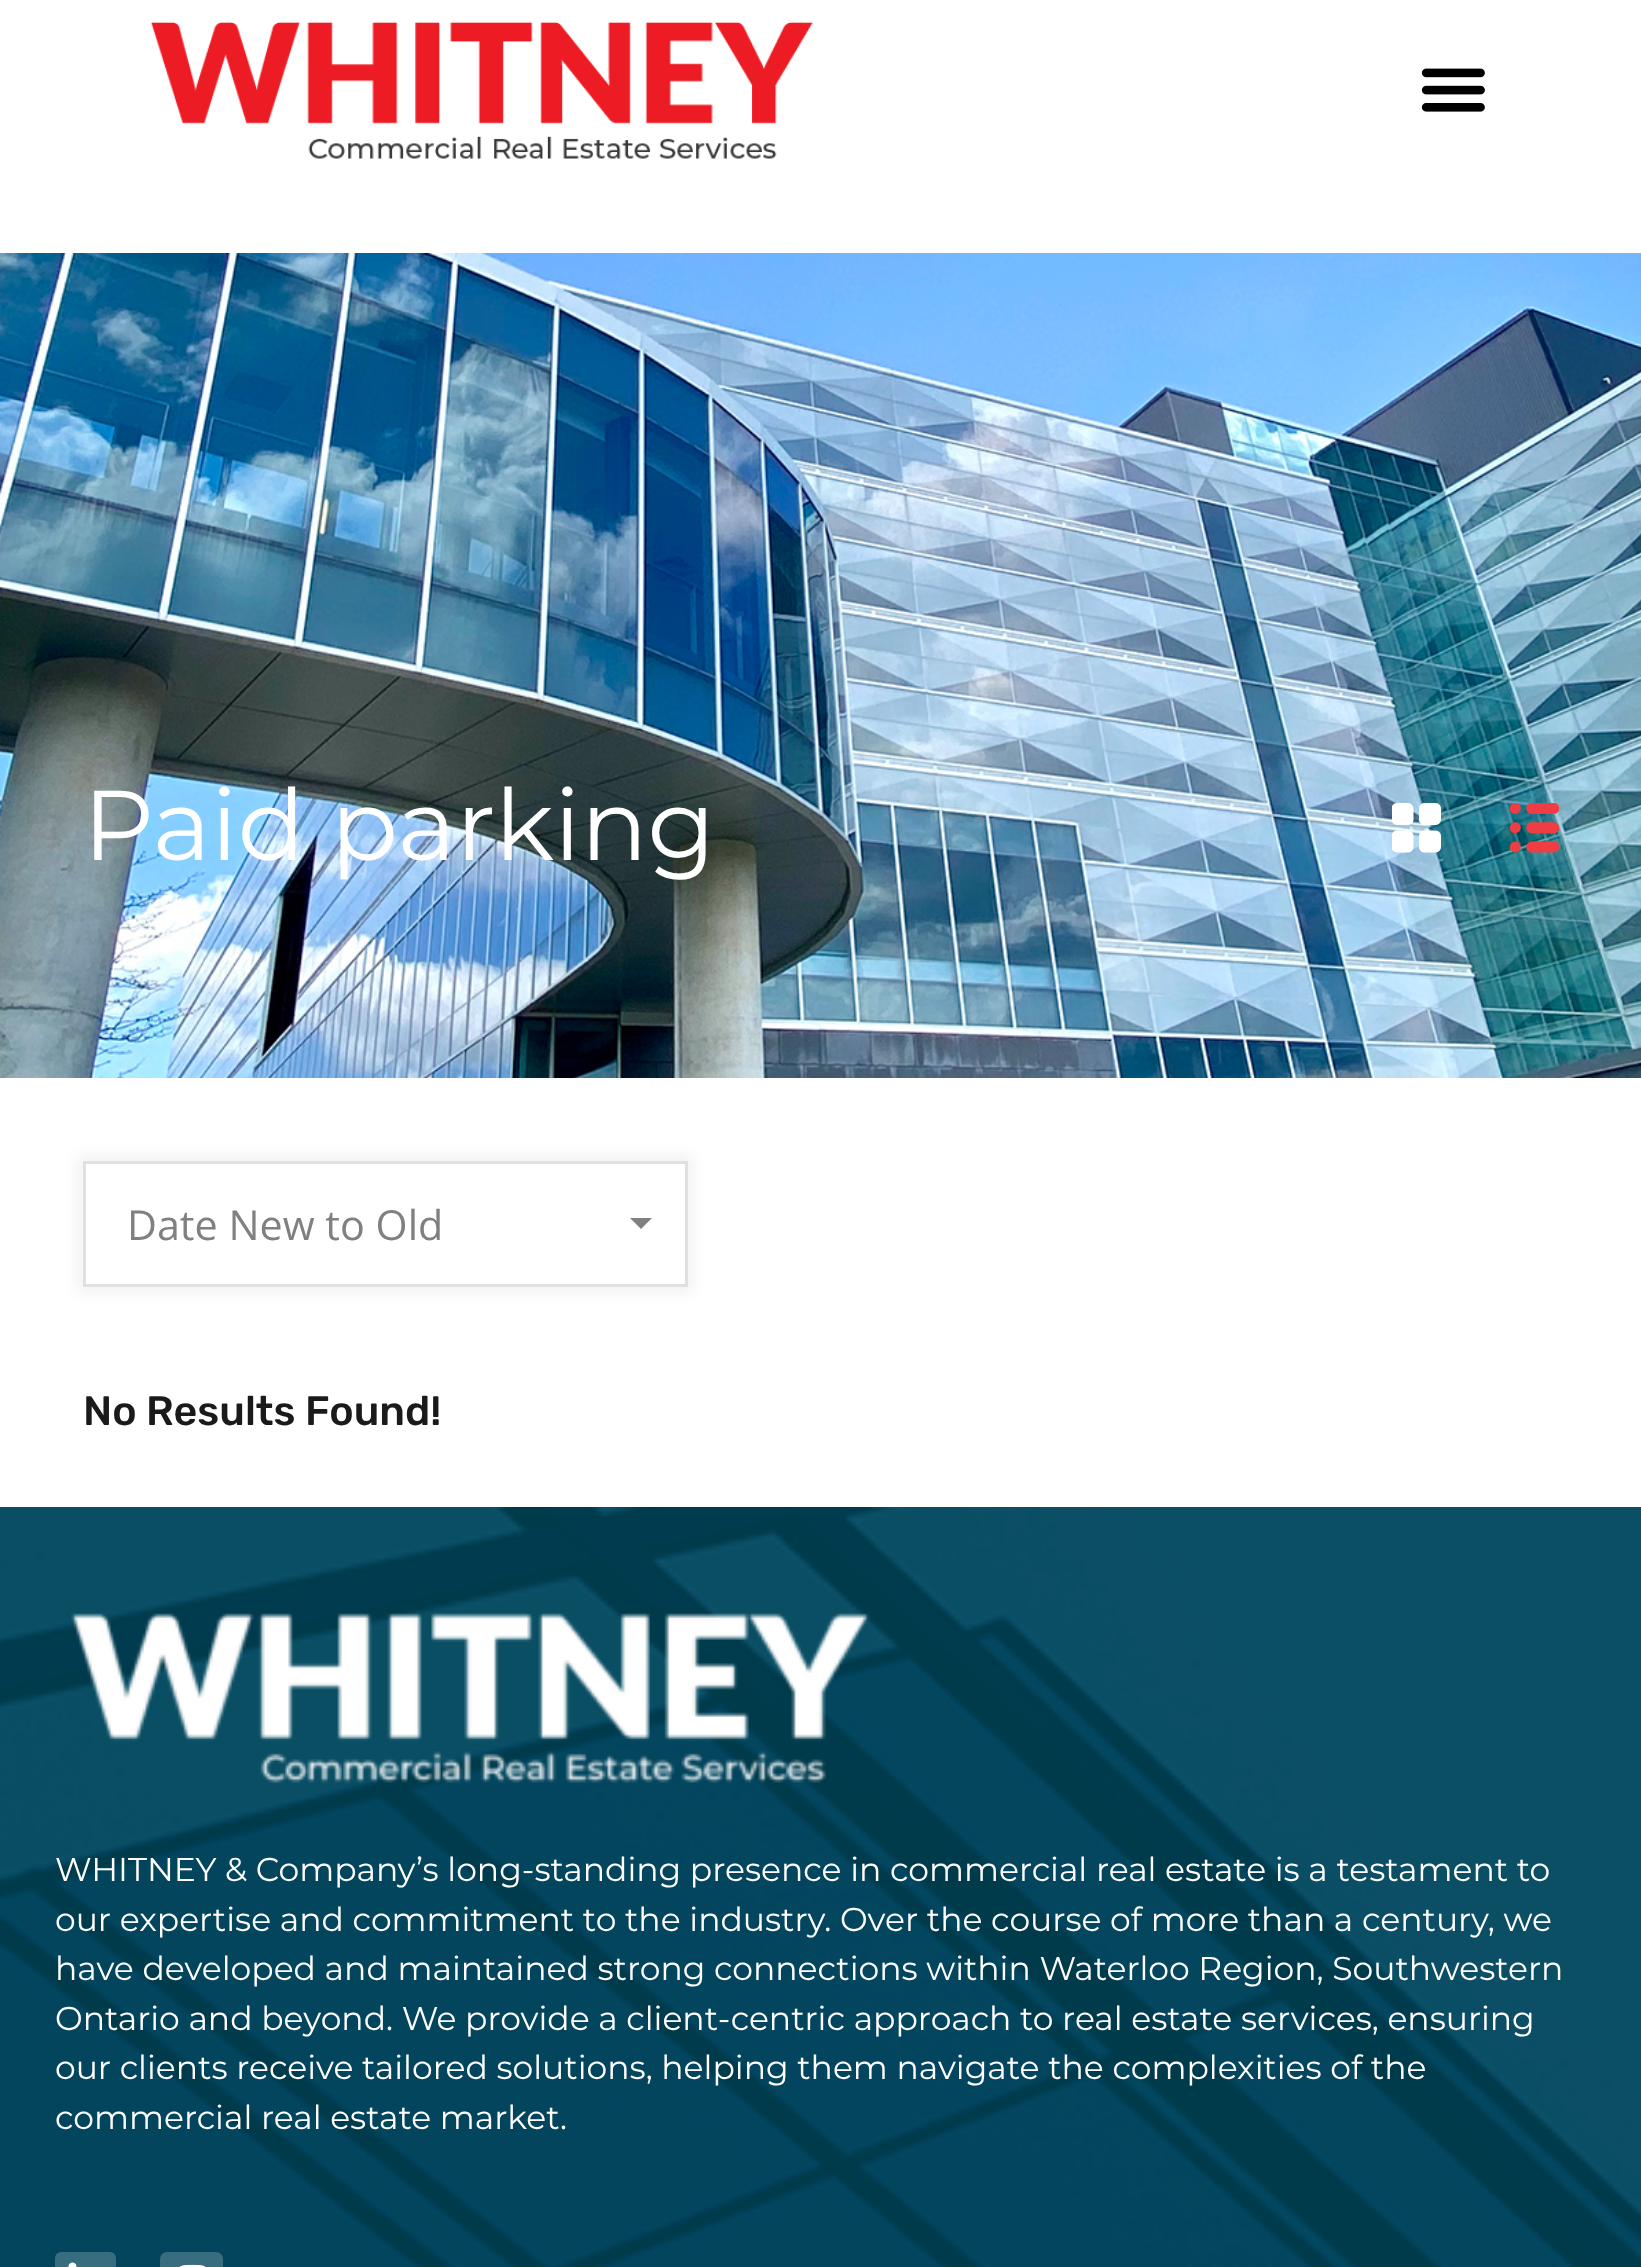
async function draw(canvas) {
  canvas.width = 1641
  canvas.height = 2267
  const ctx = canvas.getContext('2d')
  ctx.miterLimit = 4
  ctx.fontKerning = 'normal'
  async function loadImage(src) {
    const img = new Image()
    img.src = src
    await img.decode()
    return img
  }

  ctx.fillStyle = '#fff'
  ctx.fillRect(0, 0, 1641, 2267)
  ctx.drawImage(await loadImage('image0.png'), 150, 21, 663, 138)
  ctx.drawImage(await loadImage('image1.png'), 1421, 68, 64, 44)
  ctx.drawImage(await loadImage('image2.png'), 0, 253, 1641, 825)
  ctx.font = '99px Montserrat'
  ctx.fillText('Paid parking', 83, 860)
  ctx.drawImage(await loadImage('image3.png'), 1392, 803, 49, 50)
  ctx.drawImage(await loadImage('image4.png'), 1510, 803, 49, 50)
  ctx.fillStyle = '#0000000d'
  ctx.filter = 'blur(7px)'
  ctx.beginPath()
  ctx.rect(77, 1155, 616, 138)
  ctx.fill()
  ctx.filter = 'none'
  ctx.fillStyle = '#fff'
  ctx.beginPath()
  ctx.rect(84.5, 1162.5, 602, 123)
  ctx.fill()
  ctx.strokeStyle = '#e0e0e0'
  ctx.lineWidth = 3
  ctx.stroke()
  ctx.font = '41.25px Open Sans'
  ctx.fillStyle = '#808080'
  ctx.fillText('Date New to Old', 127, 1240)
  ctx.beginPath()
  ctx.moveTo(630, 1218)
  ctx.lineTo(652, 1218)
  ctx.lineTo(641, 1229)
  ctx.closePath()
  ctx.fill()
  ctx.font = '500 41.25px Rubik'
  ctx.fillStyle = '#1a1a1a'
  ctx.fillText('No Results Found!', 83, 1425)
  ctx.drawImage(await loadImage('image5.png'), 0, 1507, 1641, 760)
  ctx.drawImage(await loadImage('image6.png'), 71, 1613, 799, 170)
  ctx.font = '33px Montserrat'
  ctx.fillStyle = '#fff'
  ctx.fillText('WHITNEY & Company’s long-standing presence in commercial real estate is a testament to', 55, 1881)
  ctx.fillText('our expertise and commitment to the industry. Over the course of more than a century, we', 55, 1931)
  ctx.fillText('have developed and maintained strong connections within Waterloo Region, Southwestern', 55, 1980)
  ctx.fillText('Ontario and beyond. We provide a client-centric approach to real estate services, ensuring', 55, 2030)
  ctx.fillText('our clients receive tailored solutions, helping them navigate the complexities of the', 55, 2079)
  ctx.fillText('commercial real estate market.', 55, 2129)
  ctx.fillStyle = '#386c7f'
  ctx.beginPath()
  ctx.roundRect(55, 2252, 61, 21, 6)
  ctx.fill()
  ctx.drawImage(await loadImage('image7.png'), 68, 2262, 9, 5)
  ctx.beginPath()
  ctx.roundRect(160, 2252, 63, 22, 7)
  ctx.fill()
  ctx.drawImage(await loadImage('image8.png'), 179, 2264, 27, 3)
}

draw(document.querySelector('canvas'))
